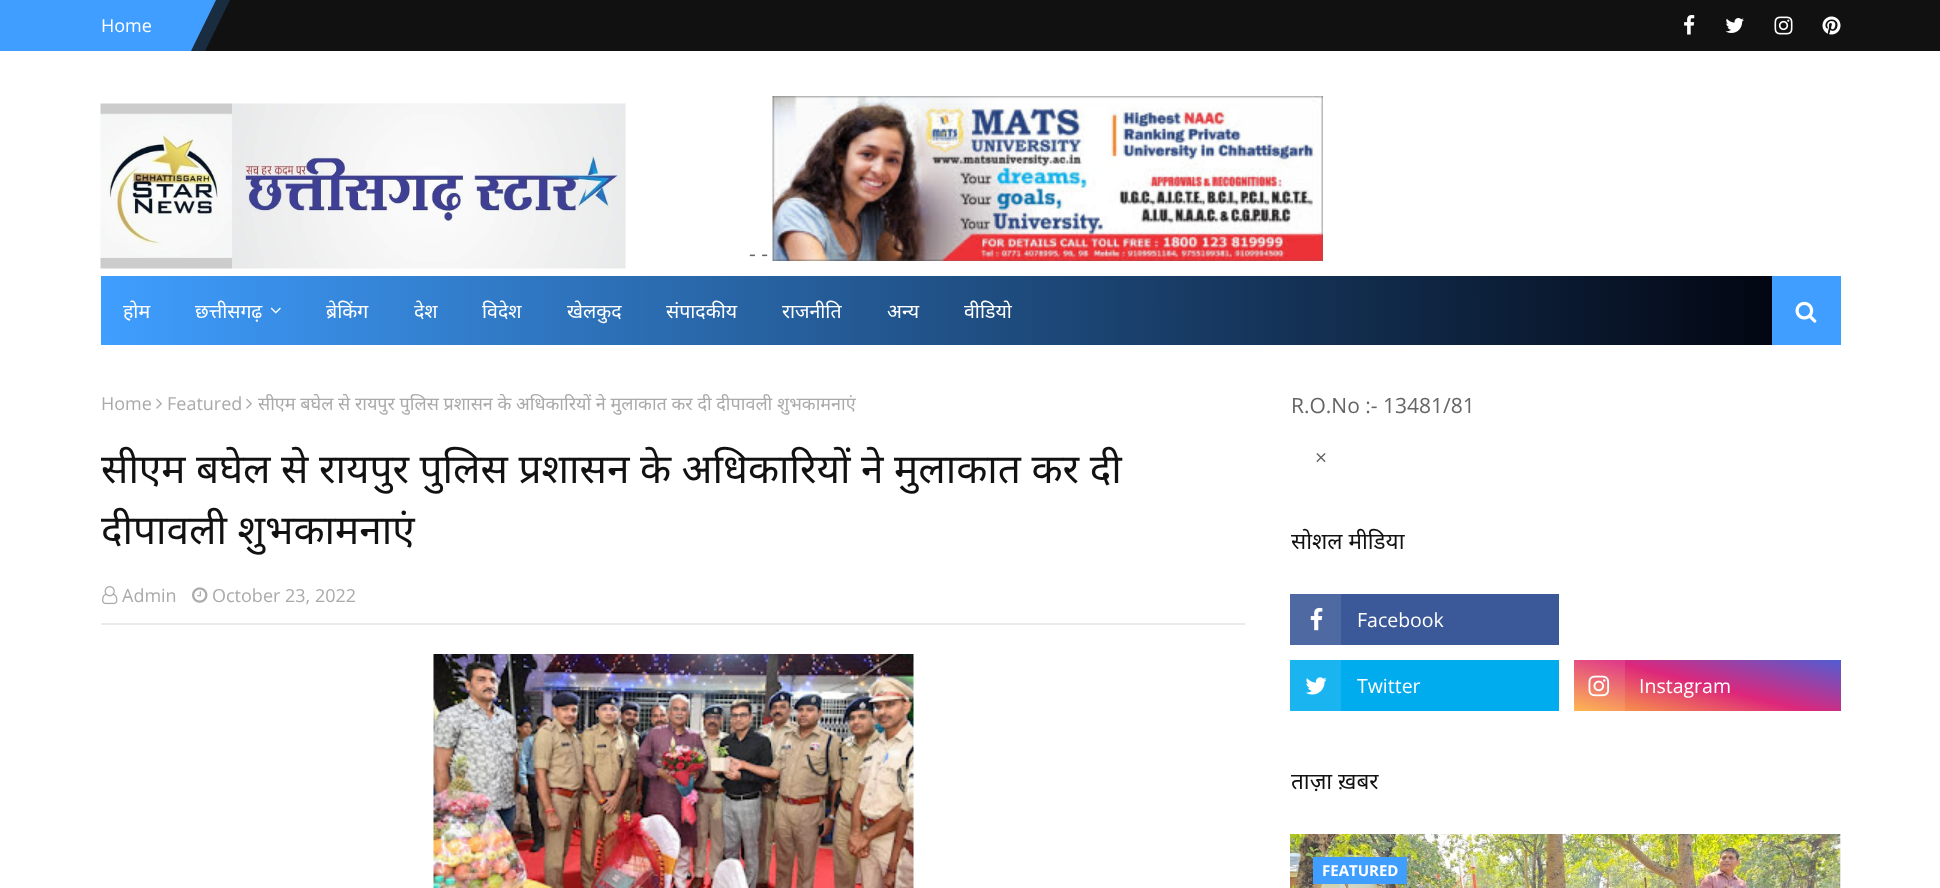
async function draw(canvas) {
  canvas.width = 1940
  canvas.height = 888
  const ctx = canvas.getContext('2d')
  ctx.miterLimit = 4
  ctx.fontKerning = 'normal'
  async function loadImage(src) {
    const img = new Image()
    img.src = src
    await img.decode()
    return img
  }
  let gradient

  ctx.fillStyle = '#fff'
  ctx.fillRect(0, 0, 1940, 888)
  ctx.fillStyle = '#111'
  ctx.fillRect(191, 0, 1749, 51)
  ctx.fillStyle = '#3f9eff'
  ctx.fillRect(0, 0, 113, 51)
  ctx.beginPath()
  ctx.moveTo(113, 0)
  ctx.lineTo(216, 0)
  ctx.lineTo(191, 51)
  ctx.lineTo(88, 51)
  ctx.closePath()
  ctx.fill()
  ctx.fillStyle = '#3f9eff33'
  ctx.beginPath()
  ctx.moveTo(126, 0)
  ctx.lineTo(230, 0)
  ctx.lineTo(205, 51)
  ctx.lineTo(102, 51)
  ctx.closePath()
  ctx.fill()
  ctx.font = '18px Open Sans'
  ctx.fillStyle = '#fff'
  ctx.fillText('Home', 101, 32)
  ctx.drawImage(await loadImage('image0.png'), 1684, 15, 11, 20)
  ctx.drawImage(await loadImage('image1.png'), 1725, 18, 19, 15)
  ctx.drawImage(await loadImage('image2.png'), 1774, 16, 19, 19)
  ctx.drawImage(await loadImage('image3.png'), 1822, 16, 19, 19)
  ctx.drawImage(await loadImage('image4.png'), 100, 103, 526, 166)
  ctx.font = '21px Open Sans'
  ctx.fillStyle = '#656565'
  ctx.fillText('- -', 749, 261)
  ctx.drawImage(await loadImage('image5.png'), 772, 96, 551, 165)
  gradient = ctx.createLinearGradient(101, 311, 1841, 310)
  gradient.addColorStop(0, '#3f9eff')
  gradient.addColorStop(1, '#000008')
  ctx.fillStyle = gradient
  ctx.fillRect(101, 276, 1671, 69)
  ctx.font = '19.5px Noto Sans'
  ctx.fillStyle = '#fff'
  ctx.fillText('होम', 123, 318)
  ctx.fillText('छत्तीसगढ़', 195, 318)
  ctx.drawImage(await loadImage('image6.png'), 270, 307, 11, 7)
  ctx.fillText('ब्रेकिंग', 326, 318)
  ctx.fillText('देश', 414, 318)
  ctx.fillText('विदेश', 482, 318)
  ctx.fillText('खेलकुद', 567, 318)
  ctx.fillText('संपादकीय', 666, 318)
  ctx.fillText('राजनीति', 782, 318)
  ctx.fillText('अन्य', 887, 318)
  ctx.fillText('वीडियो', 964, 318)
  ctx.fillStyle = '#3f9eff'
  ctx.fillRect(1772, 276, 69, 69)
  ctx.drawImage(await loadImage('image7.png'), 1795, 301, 22, 22)
  ctx.font = '18px Open Sans'
  ctx.fillStyle = '#aaa'
  ctx.fillText('Home', 101, 410)
  ctx.drawImage(await loadImage('image8.png'), 156, 398, 6, 11)
  ctx.fillText('Featured', 167, 410)
  ctx.drawImage(await loadImage('image8.png'), 246, 398, 6, 11)
  ctx.font = '18px Noto Sans'
  ctx.fillText('सीएम बघेल से रायपुर पुलिस प्रशासन के अधिकारियों ने मुलाकात कर दी दीपावली शुभकामनाएं', 258, 410)
  ctx.save()
  ctx.beginPath()
  ctx.rect(101, 390, 1144, 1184)
  ctx.clip()
  ctx.font = '40.5px Noto Sans'
  ctx.fillStyle = '#111'
  ctx.fillText('सीएम बघेल से रायपुर पुलिस प्रशासन के अधिकारियों ने मुलाकात कर दी', 101, 483)
  ctx.fillText('दीपावली शुभकामनाएं', 101, 544)
  ctx.restore()
  ctx.fillStyle = '#eaeaea'
  ctx.fillRect(101, 623, 1144, 2)
  ctx.drawImage(await loadImage('image9.png'), 102, 586, 16, 19)
  ctx.font = '18px Open Sans'
  ctx.fillStyle = '#aaa'
  ctx.fillText('Admin', 122, 602)
  ctx.drawImage(await loadImage('image10.png'), 192, 587, 16, 16)
  ctx.fillText('October 23, 2022', 212, 602)
  ctx.drawImage(await loadImage('image11.png'), 433, 654, 481, 234)
  ctx.font = '21px Open Sans'
  ctx.fillStyle = '#656565'
  ctx.fillText('R.O.No :- 13481/81', 1291, 413)
  ctx.fillText('×', 1315, 465)
  ctx.save()
  ctx.beginPath()
  ctx.rect(1290, 516, 551, 195)
  ctx.clip()
  ctx.font = '22.5px Noto Sans'
  ctx.fillStyle = '#111'
  ctx.fillText('सोशल मीडिया', 1291, 549)
  ctx.restore()
  ctx.fillStyle = '#3b5999'
  ctx.fillRect(1341, 594, 218, 51)
  ctx.fillStyle = '#4f6aa3'
  ctx.fillRect(1290, 594, 51, 51)
  ctx.drawImage(await loadImage('image12.png'), 1310, 607, 13, 24)
  ctx.font = '19.5px Open Sans'
  ctx.fillStyle = '#fff'
  ctx.fillText('Facebook', 1357, 627)
  ctx.fillStyle = '#00acee'
  ctx.fillRect(1341, 660, 218, 51)
  ctx.fillStyle = '#1ab4f0'
  ctx.fillRect(1290, 660, 51, 51)
  ctx.drawImage(await loadImage('image13.png'), 1305, 677, 22, 18)
  ctx.fillStyle = '#fff'
  ctx.fillText('Twitter', 1357, 693)
  gradient = ctx.createLinearGradient(1692, 743, 1722, 628)
  gradient.addColorStop(0, '#ffb13d')
  gradient.addColorStop(0.5, '#dd277b')
  gradient.addColorStop(1, '#4d5ed4')
  ctx.fillStyle = gradient
  ctx.fillRect(1625, 660, 216, 51)
  gradient = ctx.createLinearGradient(1692, 743, 1722, 628)
  gradient.addColorStop(0, '#ffb950')
  gradient.addColorStop(0.5, '#e03d88')
  gradient.addColorStop(1, '#5f6ed8')
  ctx.fillStyle = gradient
  ctx.fillRect(1574, 660, 51, 51)
  ctx.drawImage(await loadImage('image14.png'), 1588, 675, 22, 22)
  ctx.fillStyle = '#fff'
  ctx.fillText('Instagram', 1639, 693)
  ctx.font = '22.5px Noto Sans'
  ctx.fillStyle = '#111'
  ctx.fillText('ताज़ा ख़बर', 1291, 789)
  ctx.fillStyle = '#fafafa'
  ctx.fillRect(1840, 834, 1, 54)
  ctx.drawImage(await loadImage('image15.png'), 1290, 834, 551, 54)
  ctx.fillStyle = '#3f9eff'
  ctx.fillRect(1313, 857, 94, 27)
  ctx.font = 'bold 15px Open Sans'
  ctx.fillStyle = '#fff'
  ctx.fillText('FEATURED', 1322, 876)
}

draw(document.querySelector('canvas'))
